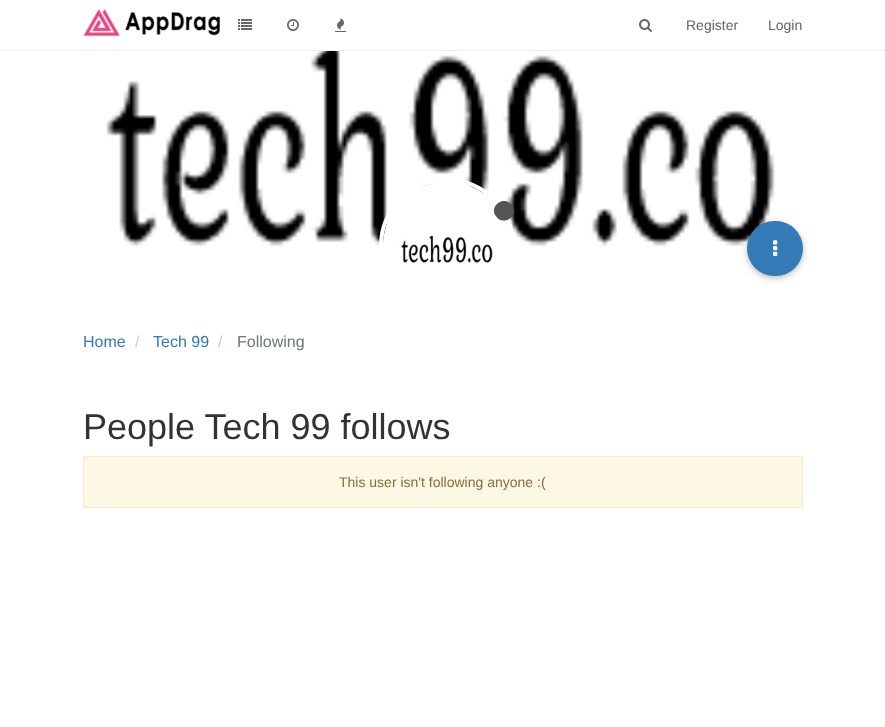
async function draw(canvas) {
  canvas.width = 885
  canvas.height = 727
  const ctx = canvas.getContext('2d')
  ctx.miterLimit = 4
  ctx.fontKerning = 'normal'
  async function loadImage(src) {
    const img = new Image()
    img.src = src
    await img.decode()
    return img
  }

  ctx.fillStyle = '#fff'
  ctx.fillRect(0, 0, 885, 727)
  ctx.fillStyle = '#eee'
  ctx.fillRect(0, 50, 885, 1)
  ctx.drawImage(await loadImage('image0.png'), 83, 9, 138, 27)
  ctx.drawImage(await loadImage('image1.png'), 238, 19, 14, 11)
  ctx.drawImage(await loadImage('image2.png'), 287, 19, 12, 12)
  ctx.drawImage(await loadImage('image3.png'), 335, 18, 11, 14)
  ctx.drawImage(await loadImage('image4.png'), 639, 19, 13, 13)
  ctx.font = '14px Liberation Sans'
  ctx.fillStyle = '#666'
  ctx.fillText('Register', 686, 30)
  ctx.fillText('Login', 768, 30)
  ctx.drawImage(await loadImage('image5.png'), 106, 51, 669, 196)
  ctx.beginPath()
  ctx.arc(447, 246, 66, 0, 2 * Math.PI)
  ctx.strokeStyle = '#fff'
  ctx.lineWidth = 4
  ctx.stroke()
  ctx.drawImage(await loadImage('image6.png'), 383, 183, 110, 80)
  ctx.fillStyle = '#555'
  ctx.beginPath()
  ctx.moveTo(512.5, 206)
  ctx.bezierCurveTo(519, 217, 502, 227, 495.5, 215.5)
  ctx.bezierCurveTo(489, 204.5, 506, 194.5, 512.5, 206)
  ctx.closePath()
  ctx.fill()
  ctx.fillStyle = '#0000001f'
  ctx.filter = 'blur(5px)'
  ctx.beginPath()
  ctx.roundRect(747, 223, 56, 55, 27.5)
  ctx.fill()
  ctx.filter = 'none'
  ctx.fillStyle = '#00000029'
  ctx.filter = 'blur(2.5px)'
  ctx.beginPath()
  ctx.roundRect(747, 223, 56, 55, 27.5)
  ctx.fill()
  ctx.filter = 'none'
  ctx.fillStyle = '#337ab7'
  ctx.beginPath()
  ctx.roundRect(747, 221, 56, 55, 27.5)
  ctx.fill()
  ctx.drawImage(await loadImage('image7.png'), 773, 240, 5, 16)
  ctx.font = '16px Liberation Sans'
  ctx.fillText('Home', 83, 347)
  ctx.fillStyle = '#ccc'
  ctx.fillText('/', 135, 347)
  ctx.fillStyle = '#337ab7'
  ctx.fillText('Tech 99', 153, 347)
  ctx.fillStyle = '#ccc'
  ctx.fillText('/', 218, 347)
  ctx.fillStyle = '#6c757d'
  ctx.fillText('Following', 237, 347)
  ctx.font = '36px Liberation Sans'
  ctx.fillStyle = '#333'
  ctx.fillText('People Tech 99 follows', 83, 439)
  ctx.fillStyle = '#fcf8e3'
  ctx.beginPath()
  ctx.rect(83.5, 456.5, 719, 51)
  ctx.fill()
  ctx.strokeStyle = '#faebcc'
  ctx.lineWidth = 1
  ctx.stroke()
  ctx.font = '14px Liberation Sans'
  ctx.fillStyle = '#8a6d3b'
  ctx.fillText('This user isn\'t following anyone :(', 339, 487)
}

draw(document.querySelector('canvas'))
